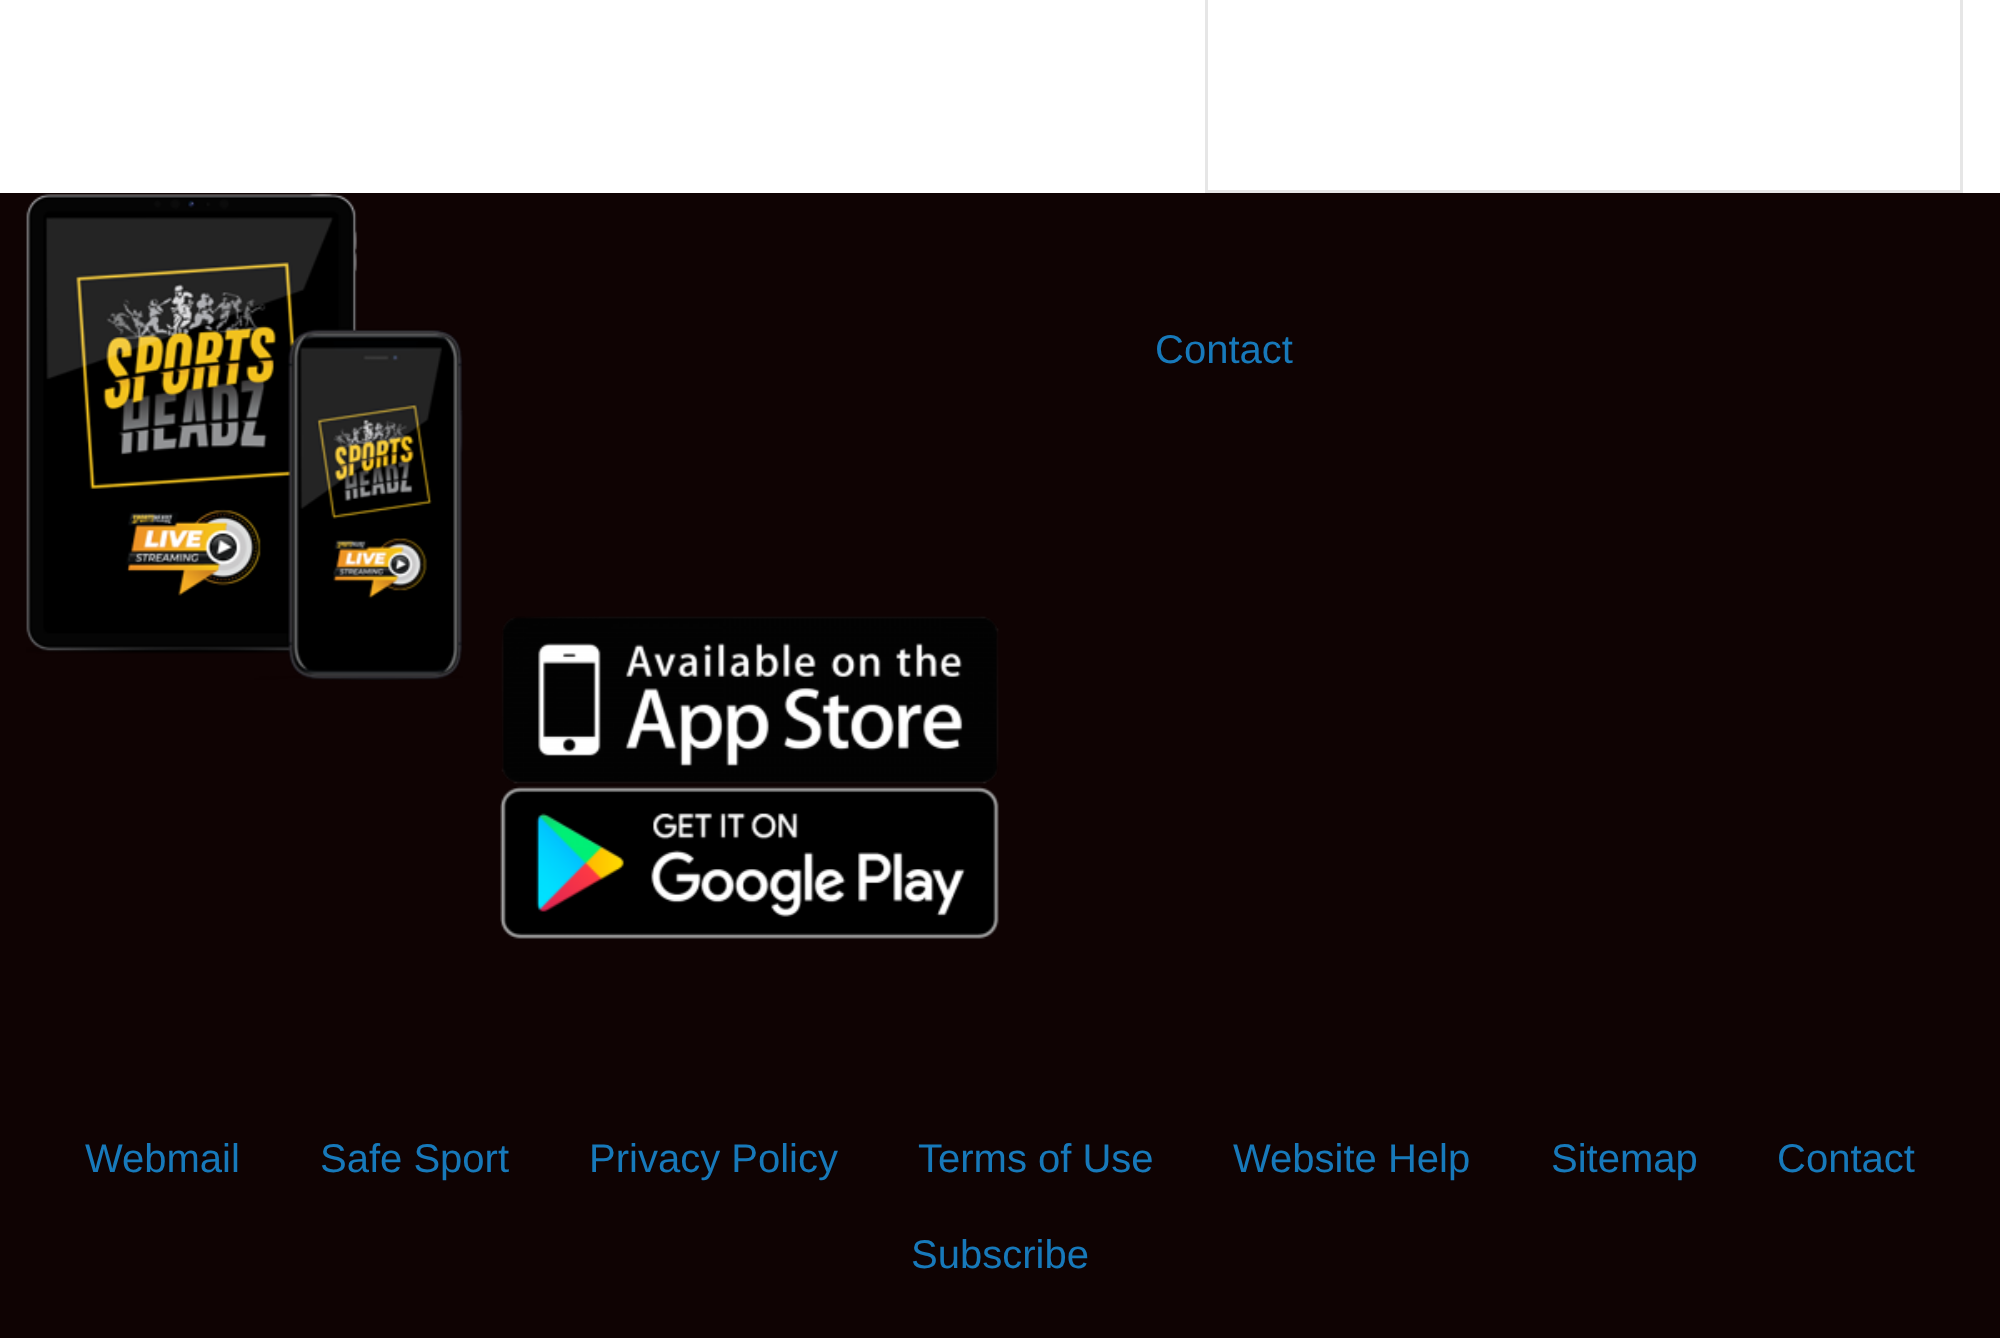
async function draw(canvas) {
  canvas.width = 2000
  canvas.height = 1338
  const ctx = canvas.getContext('2d')
  ctx.miterLimit = 4
  ctx.fontKerning = 'normal'
  async function loadImage(src) {
    const img = new Image()
    img.src = src
    await img.decode()
    return img
  }

  ctx.fillStyle = '#0f0303'
  ctx.fillRect(0, 0, 2000, 1338)
  ctx.fillStyle = '#fff'
  ctx.fillRect(0, 0, 2000, 193)
  ctx.fillStyle = '#e6e6e6'
  ctx.fillRect(1960, 0, 3, 193)
  ctx.fillRect(1205, 190, 758, 3)
  ctx.fillRect(1205, 0, 3, 193)
  ctx.drawImage(await loadImage('image0.png'), 26, 192, 437, 488)
  ctx.drawImage(await loadImage('image1.png'), 501, 616, 498, 168)
  ctx.drawImage(await loadImage('image2.png'), 500, 786, 499, 153)
  ctx.font = '40px Liberation Sans'
  ctx.fillStyle = '#1779ba'
  ctx.fillText('Contact', 1155, 363)
  ctx.fillText('Webmail', 85, 1172)
  ctx.fillText('Safe Sport', 320, 1172)
  ctx.fillText('Privacy Policy', 589, 1172)
  ctx.fillText('Terms of Use', 918, 1172)
  ctx.fillText('Website Help', 1233, 1172)
  ctx.fillText('Sitemap', 1551, 1172)
  ctx.fillText('Contact', 1777, 1172)
  ctx.fillText('Subscribe', 911, 1268)
}

draw(document.querySelector('canvas'))
